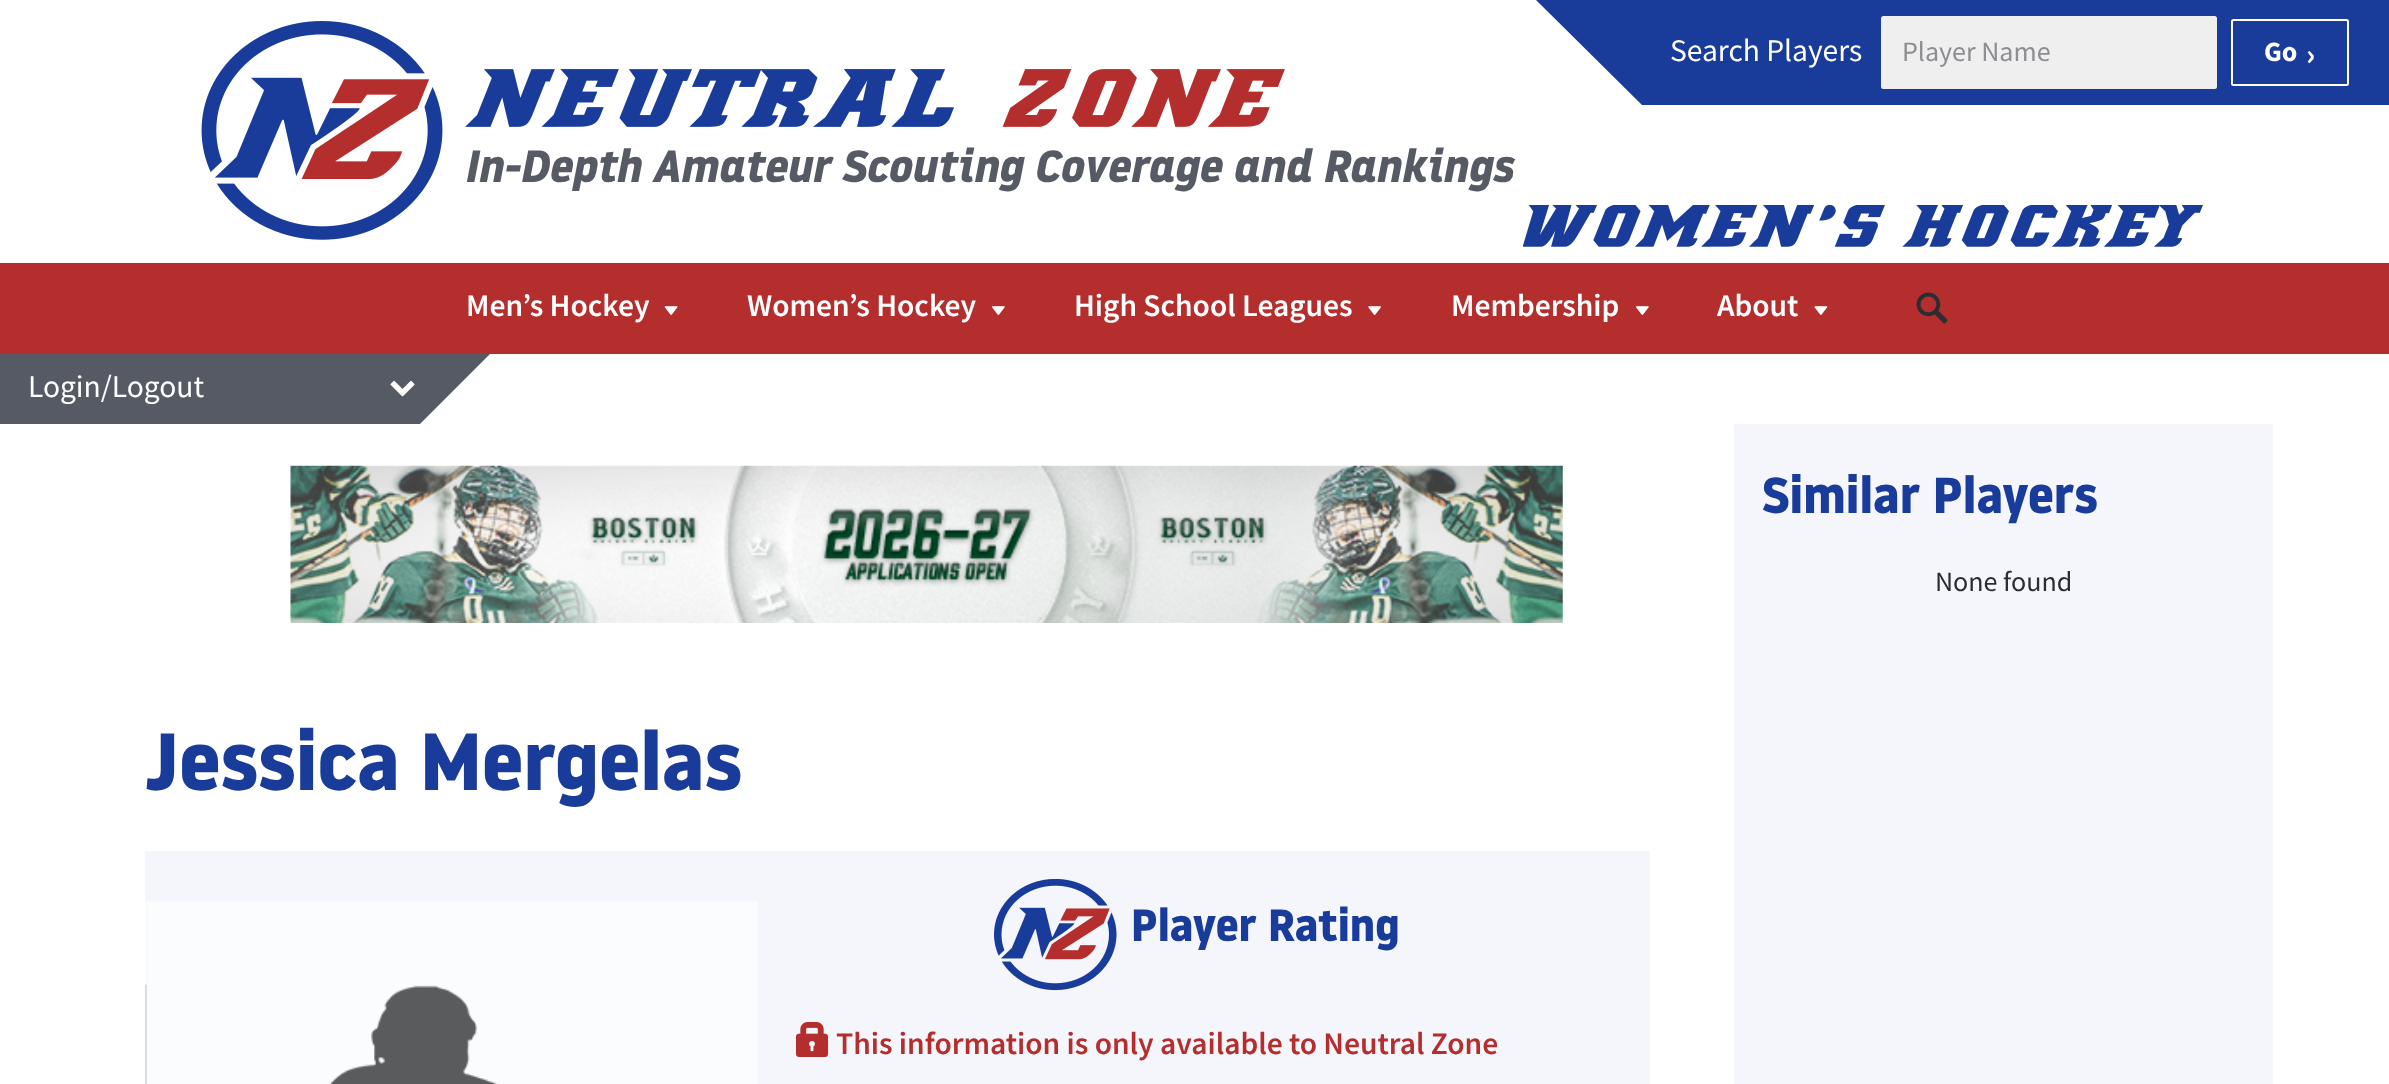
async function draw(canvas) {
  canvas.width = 2389
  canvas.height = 1084
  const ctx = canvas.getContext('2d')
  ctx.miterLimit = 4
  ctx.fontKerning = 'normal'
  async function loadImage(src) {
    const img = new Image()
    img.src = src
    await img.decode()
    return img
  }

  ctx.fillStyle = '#fff'
  ctx.fillRect(0, 0, 2389, 1084)
  ctx.fillStyle = '#193c9b'
  ctx.fillRect(1642, 0, 747, 105)
  ctx.beginPath()
  ctx.moveTo(1536, 0)
  ctx.lineTo(1642, 0)
  ctx.lineTo(1642, 105)
  ctx.closePath()
  ctx.fill()
  ctx.font = '31.5px Source Sans Pro'
  ctx.fillStyle = '#fff'
  ctx.fillText('Search Players', 1670, 61)
  ctx.fillStyle = '#efefef'
  ctx.beginPath()
  ctx.roundRect(1881, 16, 336, 73, 2.5)
  ctx.fill()
  ctx.font = '28px Source Sans Pro'
  ctx.fillStyle = '#8c8e92'
  ctx.fillText('Player Name', 1902, 61)
  ctx.beginPath()
  ctx.roundRect(2232, 20, 116, 65, 1.5)
  ctx.strokeStyle = '#fff'
  ctx.lineWidth = 2
  ctx.stroke()
  ctx.font = 'bold 28px Source Sans Pro'
  ctx.fillStyle = '#fff'
  ctx.fillText('Go', 2264, 61)
  ctx.font = 'bold 31.5px Source Sans Pro'
  ctx.fillText('›', 2306, 65)
  ctx.drawImage(await loadImage('image0.png'), 201, 21, 242, 219)
  ctx.drawImage(await loadImage('image1.png'), 465, 69, 820, 58)
  ctx.font = 'italic bold 44.9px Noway'
  ctx.fillStyle = '#565a65'
  ctx.fillText('In-Depth Amateur Scouting Coverage and Rankings', 464, 182)
  ctx.drawImage(await loadImage('image2.png'), 1523, 205, 680, 42)
  ctx.fillStyle = '#b52e2e'
  ctx.fillRect(0, 263, 2389, 91)
  ctx.font = '600 31.5px Source Sans Pro'
  ctx.fillStyle = '#fff'
  ctx.fillText('Men’s Hockey', 466, 316)
  ctx.drawImage(await loadImage('image3.png'), 664, 306, 14, 9)
  ctx.fillText('Women’s Hockey', 747, 316)
  ctx.drawImage(await loadImage('image4.png'), 992, 306, 13, 9)
  ctx.fillText('High School Leagues', 1074, 316)
  ctx.drawImage(await loadImage('image5.png'), 1368, 306, 13, 9)
  ctx.fillText('Membership', 1451, 316)
  ctx.drawImage(await loadImage('image4.png'), 1636, 306, 13, 9)
  ctx.fillText('About', 1717, 316)
  ctx.drawImage(await loadImage('image6.png'), 1814, 306, 14, 9)
  ctx.drawImage(await loadImage('image7.png'), 1916, 292, 32, 32)
  ctx.fillStyle = '#565a65'
  ctx.fillRect(0, 354, 420, 70)
  ctx.font = '31.5px Source Sans Pro'
  ctx.fillStyle = '#fff'
  ctx.fillText('Login/Logout', 28, 397)
  ctx.drawImage(await loadImage('image8.png'), 390, 380, 25, 17)
  ctx.fillStyle = '#565a65'
  ctx.beginPath()
  ctx.moveTo(420, 354)
  ctx.lineTo(490, 354)
  ctx.lineTo(420, 424)
  ctx.closePath()
  ctx.fill()
  ctx.fillStyle = '#f4f6fb'
  ctx.fillRect(1734, 424, 539, 660)
  ctx.font = 'bold 50.5px Noway'
  ctx.fillStyle = '#193c9b'
  ctx.fillText('Similar Players', 1762, 513)
  ctx.font = '28px Source Sans Pro'
  ctx.fillStyle = '#2b2d33'
  ctx.fillText('None found', 1935, 591)
  ctx.drawImage(await loadImage('image9.png'), 290, 465, 1273, 158)
  ctx.font = 'bold 80.75px Noway'
  ctx.fillStyle = '#193c9b'
  ctx.fillText('Jessica Mergelas', 145, 790)
  ctx.fillStyle = '#f4f6fb'
  ctx.fillRect(145, 851, 1505, 233)
  ctx.drawImage(await loadImage('image10.png'), 145, 901, 613, 183)
  ctx.drawImage(await loadImage('image11.png'), 994, 879, 123, 112)
  ctx.font = 'bold 44.9px Noway'
  ctx.fillStyle = '#193c9b'
  ctx.fillText('Player Rating', 1131, 941)
  ctx.drawImage(await loadImage('image12.png'), 795, 1022, 34, 35)
  ctx.font = '600 31.5px Source Sans Pro'
  ctx.fillStyle = '#b52e2e'
  ctx.fillText('This information is only available to Neutral Zone', 836, 1054)
}

draw(document.querySelector('canvas'))
